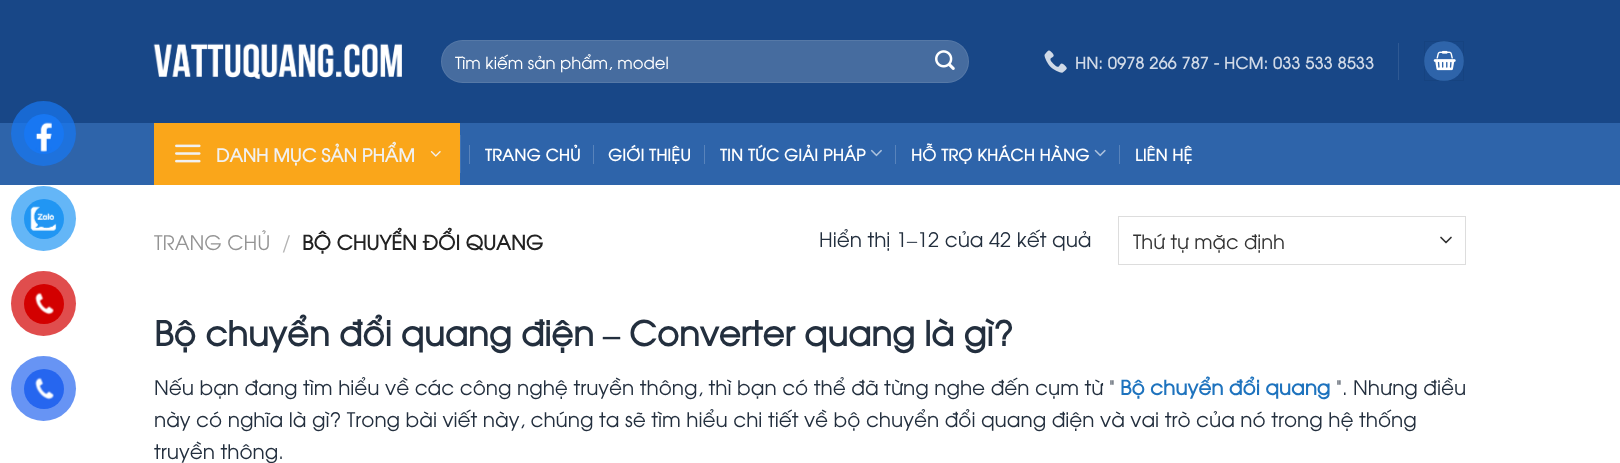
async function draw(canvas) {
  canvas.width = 1620
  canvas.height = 463
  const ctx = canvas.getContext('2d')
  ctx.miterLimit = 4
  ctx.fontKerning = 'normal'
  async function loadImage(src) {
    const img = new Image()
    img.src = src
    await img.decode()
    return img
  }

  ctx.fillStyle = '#fff'
  ctx.fillRect(0, 0, 1620, 463)
  ctx.fillStyle = '#184787'
  ctx.fillRect(0, 0, 1620, 123)
  ctx.fillStyle = '#2e64aa'
  ctx.fillRect(0, 123, 1620, 62)
  ctx.fillStyle = '#1877f2b3'
  ctx.beginPath()
  ctx.arc(43.5, 133.5, 32.5, 0, 2 * Math.PI)
  ctx.fill()
  ctx.fillStyle = '#1877f2'
  ctx.beginPath()
  ctx.arc(44, 134, 20, 0, 2 * Math.PI)
  ctx.fill()
  ctx.drawImage(await loadImage('image0.png'), 35, 122, 17, 30)
  ctx.fillStyle = '#64b6f7'
  ctx.beginPath()
  ctx.arc(43.5, 218.5, 32.5, 0, 2 * Math.PI)
  ctx.fill()
  ctx.fillStyle = '#2196f3'
  ctx.beginPath()
  ctx.arc(44, 219, 20, 0, 2 * Math.PI)
  ctx.fill()
  ctx.drawImage(await loadImage('image1.png'), 30, 206, 27, 25)
  ctx.fillStyle = '#e04d4d'
  ctx.beginPath()
  ctx.arc(43.5, 303.5, 32.5, 0, 2 * Math.PI)
  ctx.fill()
  ctx.fillStyle = '#d30000'
  ctx.beginPath()
  ctx.arc(44, 304, 20, 0, 2 * Math.PI)
  ctx.fill()
  ctx.drawImage(await loadImage('image2.png'), 34, 292, 20, 23)
  ctx.fillStyle = '#6794f4'
  ctx.beginPath()
  ctx.arc(43.5, 388.5, 32.5, 0, 2 * Math.PI)
  ctx.fill()
  ctx.fillStyle = '#2666ef'
  ctx.beginPath()
  ctx.arc(44, 389, 20, 0, 2 * Math.PI)
  ctx.fill()
  ctx.drawImage(await loadImage('image3.png'), 34, 377, 20, 23)
  ctx.drawImage(await loadImage('image4.png'), 153, 43, 249, 36)
  ctx.fillStyle = '#466c9f'
  ctx.beginPath()
  ctx.roundRect(441, 40, 528, 43, 21.5)
  ctx.fill()
  ctx.beginPath()
  ctx.roundRect(441.5, 40.5, 527, 42, 21)
  ctx.strokeStyle = '#ffffff17'
  ctx.stroke()
  ctx.font = '16.5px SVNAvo'
  ctx.fillStyle = '#fff'
  ctx.fillText('Tìm kiếm sản phẩm, model', 455, 69)
  ctx.drawImage(await loadImage('image5.png'), 935, 50, 20, 20)
  ctx.drawImage(await loadImage('image6.png'), 1044, 50, 23, 23)
  ctx.letterSpacing = '0.3px'
  ctx.font = 'bold 16px SVNAvo'
  ctx.fillStyle = '#d1dae7'
  ctx.fillText('HN: 0978 266 787 - HCM: 033 533 8533', 1075, 69)
  ctx.fillStyle = '#2f5993'
  ctx.fillRect(1398, 43, 1, 37)
  ctx.fillStyle = '#2e64aa'
  ctx.beginPath()
  ctx.arc(1444, 61, 20, 0, 2 * Math.PI)
  ctx.fill()
  ctx.strokeStyle = '#0000000d'
  ctx.strokeRect(1424.5, 41.5, 39, 39)
  ctx.drawImage(await loadImage('image7.png'), 1433, 50, 23, 21)
  ctx.fillStyle = '#faa61a'
  ctx.fillRect(154, 123, 306, 62)
  ctx.drawImage(await loadImage('image8.png'), 175, 144, 26, 19)
  ctx.letterSpacing = '0px'
  ctx.font = 'bold 18px SVNAvo'
  ctx.fillStyle = '#f1f1f1'
  ctx.fillText('DANH MỤC SẢN PHẨM', 216, 162)
  ctx.drawImage(await loadImage('image9.png'), 430, 151, 11, 6)
  ctx.fillStyle = '#4374b3'
  ctx.fillRect(460, 135, 1, 38)
  ctx.fillStyle = '#5883bb'
  ctx.fillRect(469, 145, 1, 19)
  ctx.letterSpacing = '0.3px'
  ctx.font = 'bold 16px SVNAvo'
  ctx.fillStyle = '#fff'
  ctx.fillText('TRANG CHỦ', 485, 161)
  ctx.fillStyle = '#5883bb'
  ctx.fillRect(593, 145, 1, 19)
  ctx.fillStyle = '#fff'
  ctx.fillText('GIỚI THIỆU', 608, 161)
  ctx.fillStyle = '#5883bb'
  ctx.fillRect(704, 145, 1, 19)
  ctx.fillStyle = '#fff'
  ctx.fillText('TIN TỨC GIẢI PHÁP', 720, 161)
  ctx.drawImage(await loadImage('image10.png'), 870, 149, 12, 8)
  ctx.fillStyle = '#5883bb'
  ctx.fillRect(895, 145, 1, 19)
  ctx.fillStyle = '#fff'
  ctx.fillText('HỖ TRỢ KHÁCH HÀNG', 911, 161)
  ctx.drawImage(await loadImage('image11.png'), 1094, 149, 12, 8)
  ctx.fillStyle = '#5883bb'
  ctx.fillRect(1119, 145, 1, 19)
  ctx.fillStyle = '#fff'
  ctx.fillText('LIÊN HỆ', 1135, 161)
  ctx.letterSpacing = '0px'
  ctx.font = '20px SVNAvo'
  ctx.fillStyle = '#949494'
  ctx.fillText('TRANG CHỦ', 154, 250)
  ctx.fillStyle = '#b2b2b2'
  ctx.fillText('/', 282, 250)
  ctx.font = 'bold 20px SVNAvo'
  ctx.fillStyle = '#222'
  ctx.fillText('BỘ CHUYỂN ĐỔI QUANG', 302, 250)
  ctx.font = '20px SVNAvo'
  ctx.fillStyle = '#232f3e'
  ctx.fillText('Hiển thị 1', 819, 247)
  ctx.font = '20px Liberation Serif'
  ctx.fillText('–', 907, 247)
  ctx.font = '20px SVNAvo'
  ctx.fillText('12 của 42 kết quả', 917, 247)
  ctx.beginPath()
  ctx.moveTo(1441, 237.5)
  ctx.lineTo(1446, 242.5)
  ctx.lineTo(1451, 237.5)
  ctx.strokeStyle = '#333'
  ctx.lineWidth = 1.7
  ctx.lineCap = 'round'
  ctx.lineJoin = 'round'
  ctx.stroke()
  ctx.strokeStyle = '#ddd'
  ctx.lineWidth = 1
  ctx.lineJoin = 'miter'
  ctx.strokeRect(1118.5, 216.5, 347, 48)
  ctx.font = '19.5px SVNAvo'
  ctx.fillStyle = '#333'
  ctx.fillText('Thứ tự mặc định', 1133, 249)
  ctx.font = 'bold 34px SVNAvo'
  ctx.fillStyle = '#232f3e'
  ctx.fillText('Bộ chuyển đổi quang điện', 154, 346)
  ctx.font = 'bold 34px Liberation Serif'
  ctx.fillText('–', 603, 346)
  ctx.font = 'bold 34px SVNAvo'
  ctx.fillText('Converter quang là gì?', 629, 346)
  ctx.font = '20px SVNAvo'
  ctx.fillText('Nếu bạn đang tìm hiểu về các công nghệ truyền thông, thì bạn có thể đã từng nghe đến cụm từ “', 154, 395)
  ctx.font = 'bold 20px SVNAvo'
  ctx.fillStyle = '#1e73be'
  ctx.fillText('Bộ chuyển đổi quang', 1120, 395)
  ctx.font = '20px SVNAvo'
  ctx.fillStyle = '#232f3e'
  ctx.fillText('”. Nhưng điều', 1336, 395)
  ctx.fillText('này có nghĩa là gì? Trong bài viết này, chúng ta sẽ tìm hiểu chi tiết về bộ chuyển đổi quang điện và vai trò của nó trong hệ thống', 154, 427)
  ctx.fillText('truyền thông.', 154, 459)
}

draw(document.querySelector('canvas'))
